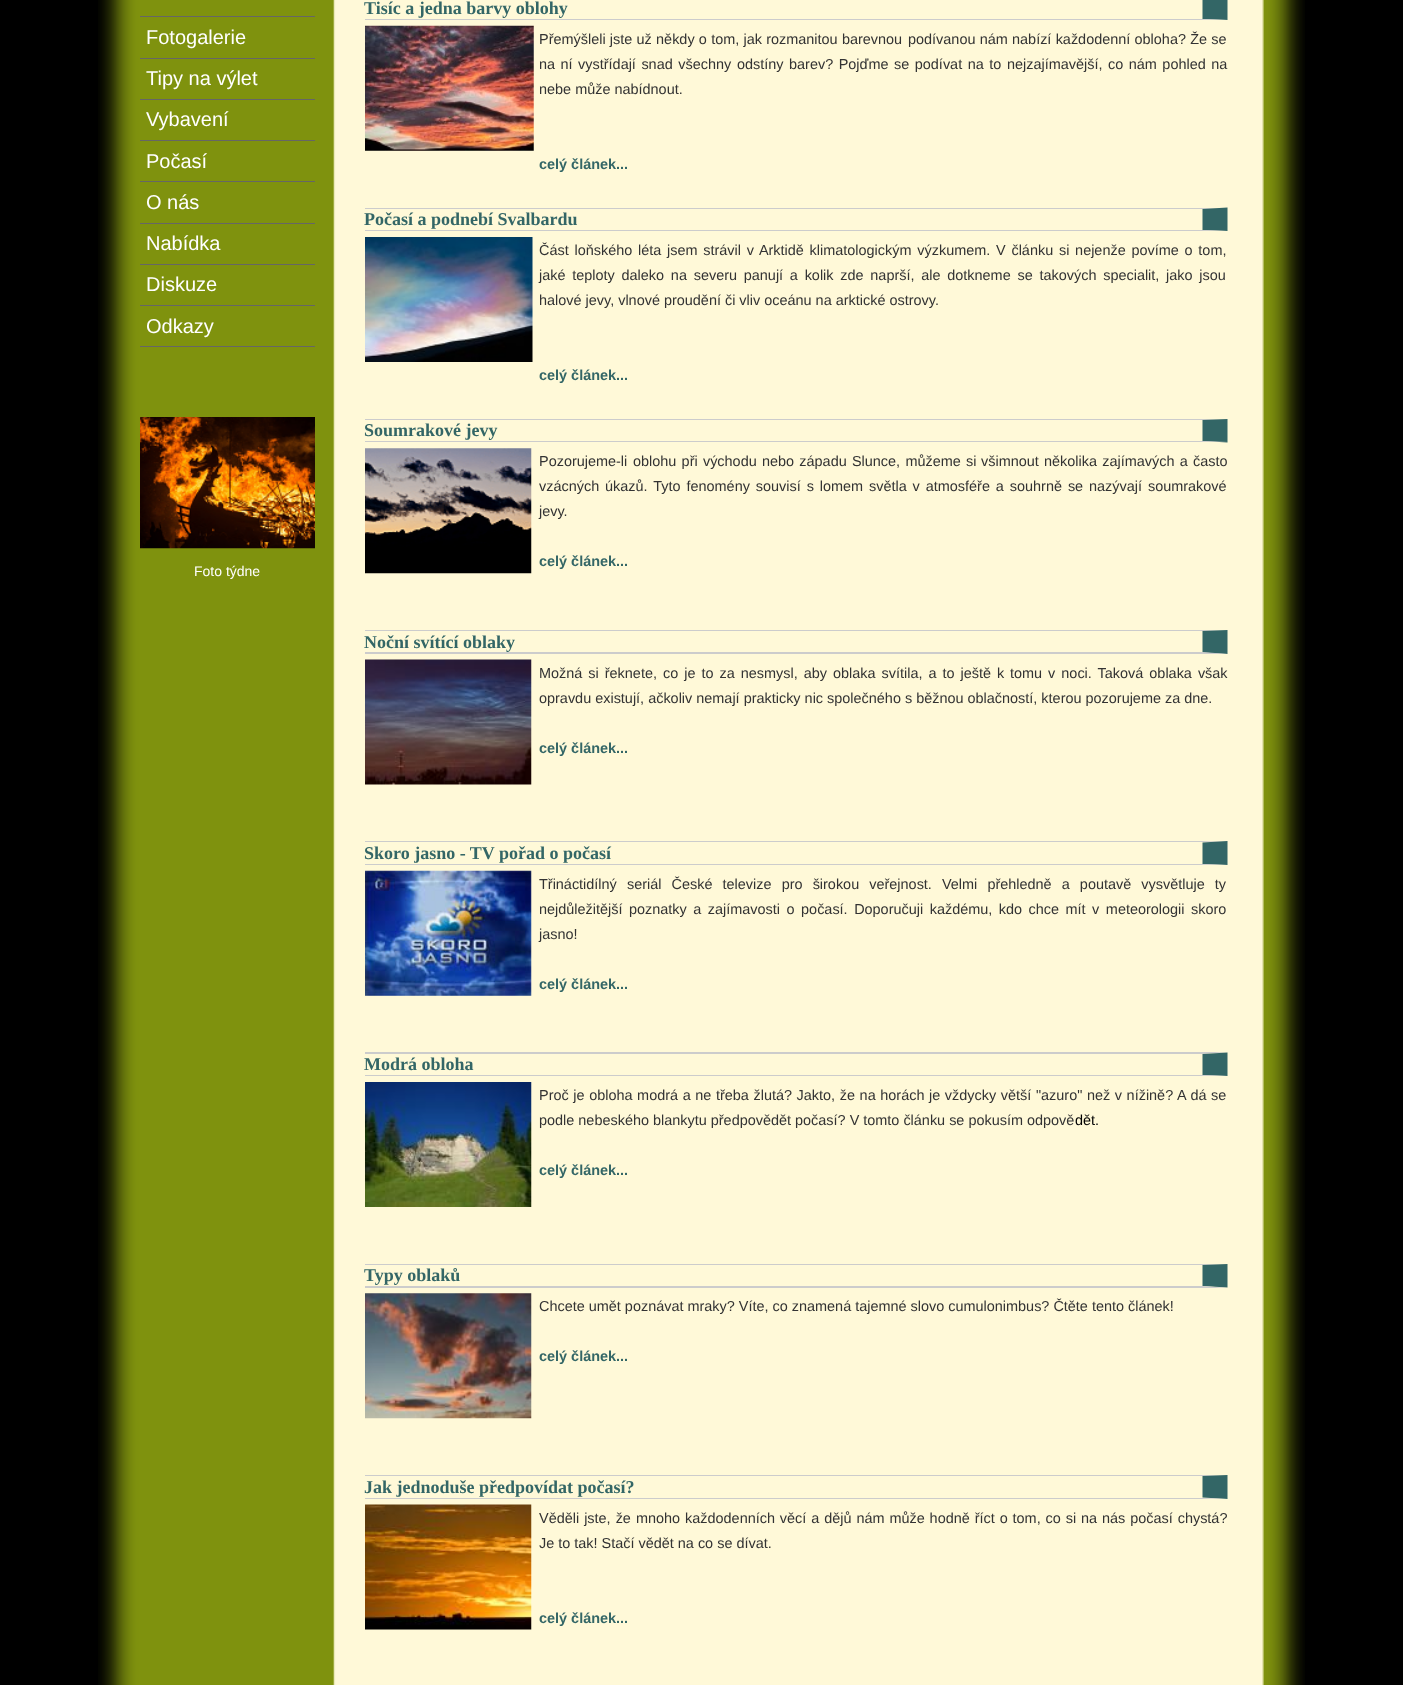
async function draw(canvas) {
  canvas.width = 1403
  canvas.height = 1685
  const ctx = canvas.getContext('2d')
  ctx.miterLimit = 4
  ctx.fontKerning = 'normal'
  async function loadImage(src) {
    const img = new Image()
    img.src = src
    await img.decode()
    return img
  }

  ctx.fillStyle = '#000'
  ctx.fillRect(0, 0, 1403, 1685)
  ctx.drawImage(await loadImage('image0.png'), 98, 0, 1207, 1685)
  ctx.fillStyle = '#666'
  ctx.fillRect(140, 16, 175, 1)
  ctx.fillRect(140, 58, 175, 1)
  ctx.font = '20px Liberation Sans'
  ctx.fillStyle = '#fff'
  ctx.fillText('Fotogalerie', 146, 44)
  ctx.fillStyle = '#666'
  ctx.fillRect(140, 99, 175, 1)
  ctx.fillStyle = '#fff'
  ctx.fillText('Tipy na výlet', 146, 85)
  ctx.fillStyle = '#666'
  ctx.fillRect(140, 140, 175, 1)
  ctx.fillStyle = '#fff'
  ctx.fillText('Vybavení', 146, 126)
  ctx.fillStyle = '#666'
  ctx.fillRect(140, 181, 175, 1)
  ctx.fillStyle = '#fff'
  ctx.fillText('Počasí', 146, 168)
  ctx.fillStyle = '#666'
  ctx.fillRect(140, 223, 175, 1)
  ctx.fillStyle = '#fff'
  ctx.fillText('O nás', 146, 209)
  ctx.fillStyle = '#666'
  ctx.fillRect(140, 264, 175, 1)
  ctx.fillStyle = '#fff'
  ctx.fillText('Nabídka', 146, 250)
  ctx.fillStyle = '#666'
  ctx.fillRect(140, 305, 175, 1)
  ctx.fillStyle = '#fff'
  ctx.fillText('Diskuze', 146, 291)
  ctx.fillStyle = '#666'
  ctx.fillRect(140, 346, 175, 1)
  ctx.fillStyle = '#fff'
  ctx.fillText('Odkazy', 146, 333)
  ctx.drawImage(await loadImage('image1.png'), 140, 417, 175, 132)
  ctx.font = '14px Liberation Sans'
  ctx.fillText('Foto týdne', 194, 576)
  ctx.fillStyle = '#366'
  ctx.beginPath()
  ctx.moveTo(1227.5, -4)
  ctx.lineTo(1227.5, 20)
  ctx.lineTo(1202.5, 19)
  ctx.lineTo(1202.5, -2.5)
  ctx.closePath()
  ctx.fill()
  ctx.fillStyle = '#ccc'
  ctx.beginPath()
  ctx.moveTo(1228, 20)
  ctx.lineTo(365, 20)
  ctx.lineTo(365, 19)
  ctx.lineTo(1202, 19)
  ctx.closePath()
  ctx.fill()
  ctx.font = 'bold 18px Liberation Serif'
  ctx.fillStyle = '#366'
  ctx.fillText('Tisíc a jedna barvy oblohy', 364, 14)
  ctx.drawImage(await loadImage('image2.png'), 365, 25, 169, 126)
  ctx.wordSpacing = '0.25px'
  ctx.font = '14.45px Liberation Sans'
  ctx.fillStyle = '#333'
  ctx.fillText('Přemýšleli jste už někdy o tom, jak rozmanitou barevnou', 539, 44)
  ctx.fillText('podívanou nám nabízí každodenní obloha? Že se', 908, 44)
  ctx.wordSpacing = '1.5px'
  ctx.fillText('na ní vystřídají snad všechny', 539, 69)
  ctx.fillText('odstíny barev? Pojďme se podívat na to', 737, 69)
  ctx.fillText('nejzajímavější, co nám pohled na', 1007, 69)
  ctx.wordSpacing = '0px'
  ctx.fillText('nebe může nabídnout.', 539, 94)
  ctx.font = 'bold 14.45px Liberation Sans'
  ctx.fillStyle = '#366'
  ctx.fillText('celý článek...', 539, 169)
  ctx.fillStyle = '#ccc'
  ctx.beginPath()
  ctx.moveTo(365, 208)
  ctx.lineTo(1228, 208)
  ctx.lineTo(1202, 209)
  ctx.lineTo(365, 209)
  ctx.closePath()
  ctx.fill()
  ctx.fillStyle = '#366'
  ctx.beginPath()
  ctx.moveTo(1227.5, 207.5)
  ctx.lineTo(1227.5, 231)
  ctx.lineTo(1202.5, 230)
  ctx.lineTo(1202.5, 209)
  ctx.closePath()
  ctx.fill()
  ctx.fillStyle = '#ccc'
  ctx.beginPath()
  ctx.moveTo(1228, 231)
  ctx.lineTo(365, 231)
  ctx.lineTo(365, 230)
  ctx.lineTo(1202, 230)
  ctx.closePath()
  ctx.fill()
  ctx.font = 'bold 18px Liberation Serif'
  ctx.fillStyle = '#366'
  ctx.fillText('Počasí a podnebí Svalbardu', 364, 225)
  ctx.drawImage(await loadImage('image3.png'), 365, 237, 168, 125)
  ctx.wordSpacing = '1.75px'
  ctx.font = '14.45px Liberation Sans'
  ctx.fillStyle = '#333'
  ctx.fillText('Část loňského léta jsem strávil v Arktidě klimatologickým výzkumem. V článku si nejenže povíme o tom,', 539, 255)
  ctx.wordSpacing = '2.75px'
  ctx.fillText('jaké teploty daleko na severu panují a kolik zde naprší, ale dotkneme se takových specialit, jako jsou', 539, 280)
  ctx.wordSpacing = '0px'
  ctx.fillText('halové jevy, vlnové proudění či vliv oceánu na arktické ostrovy.', 539, 305)
  ctx.font = 'bold 14.45px Liberation Sans'
  ctx.fillStyle = '#366'
  ctx.fillText('celý článek...', 539, 380)
  ctx.fillStyle = '#ccc'
  ctx.beginPath()
  ctx.moveTo(365, 419)
  ctx.lineTo(1228, 419)
  ctx.lineTo(1202, 420)
  ctx.lineTo(365, 420)
  ctx.closePath()
  ctx.fill()
  ctx.fillStyle = '#366'
  ctx.beginPath()
  ctx.moveTo(1227.5, 419)
  ctx.lineTo(1227.5, 442.5)
  ctx.lineTo(1202.5, 441)
  ctx.lineTo(1202.5, 420)
  ctx.closePath()
  ctx.fill()
  ctx.fillStyle = '#ccc'
  ctx.beginPath()
  ctx.moveTo(1228, 442)
  ctx.lineTo(365, 442)
  ctx.lineTo(365, 441)
  ctx.lineTo(1202, 441)
  ctx.closePath()
  ctx.fill()
  ctx.font = 'bold 18px Liberation Serif'
  ctx.fillStyle = '#366'
  ctx.fillText('Soumrakové jevy', 364, 436)
  ctx.drawImage(await loadImage('image4.png'), 365, 448, 167, 126)
  ctx.font = '14.45px Liberation Sans'
  ctx.fillStyle = '#333'
  ctx.fillText('Pozorujeme-li', 539, 466)
  ctx.wordSpacing = '1.25px'
  ctx.fillText('oblohu při východu nebo západu Slunce, můžeme si', 633, 466)
  ctx.fillText('všimnout několika zajímavých a často', 981, 466)
  ctx.wordSpacing = '1.9px'
  ctx.fillText('vzácných úkazů. Tyto fenomény souvisí s lomem světla v atmosféře a souhrně se nazývají soumrakové', 539, 491)
  ctx.wordSpacing = '0px'
  ctx.fillText('jevy.', 539, 516)
  ctx.font = 'bold 14.45px Liberation Sans'
  ctx.fillStyle = '#366'
  ctx.fillText('celý článek...', 539, 566)
  ctx.fillStyle = '#ccc'
  ctx.beginPath()
  ctx.moveTo(365, 630)
  ctx.lineTo(1228, 630)
  ctx.lineTo(1202, 631)
  ctx.lineTo(365, 631)
  ctx.closePath()
  ctx.fill()
  ctx.fillStyle = '#366'
  ctx.beginPath()
  ctx.moveTo(1227.5, 630)
  ctx.lineTo(1227.5, 654)
  ctx.lineTo(1202.5, 652.5)
  ctx.lineTo(1202.5, 631)
  ctx.closePath()
  ctx.fill()
  ctx.fillStyle = '#ccc'
  ctx.beginPath()
  ctx.moveTo(1228, 654)
  ctx.lineTo(365, 654)
  ctx.lineTo(365, 652)
  ctx.lineTo(1202, 652)
  ctx.closePath()
  ctx.fill()
  ctx.font = 'bold 18px Liberation Serif'
  ctx.fillStyle = '#366'
  ctx.fillText('Noční svítící oblaky', 364, 648)
  ctx.drawImage(await loadImage('image5.png'), 365, 659, 167, 126)
  ctx.wordSpacing = '2px'
  ctx.font = '14.45px Liberation Sans'
  ctx.fillStyle = '#333'
  ctx.fillText('Možná si řeknete, co je to za nesmysl, aby oblaka svítila, a to ještě k', 539, 678)
  ctx.fillText('tomu v noci. Taková oblaka však', 1010, 678)
  ctx.wordSpacing = '0px'
  ctx.fillText('opravdu existují, ačkoliv nemají prakticky nic společného s běžnou oblačností, kterou pozorujeme za dne.', 539, 703)
  ctx.font = 'bold 14.45px Liberation Sans'
  ctx.fillStyle = '#366'
  ctx.fillText('celý článek...', 539, 753)
  ctx.fillStyle = '#ccc'
  ctx.beginPath()
  ctx.moveTo(365, 841)
  ctx.lineTo(1228, 841)
  ctx.lineTo(1202, 842)
  ctx.lineTo(365, 842)
  ctx.closePath()
  ctx.fill()
  ctx.fillStyle = '#366'
  ctx.beginPath()
  ctx.moveTo(1227.5, 841)
  ctx.lineTo(1227.5, 865)
  ctx.lineTo(1202.5, 864)
  ctx.lineTo(1202.5, 842.5)
  ctx.closePath()
  ctx.fill()
  ctx.fillStyle = '#ccc'
  ctx.beginPath()
  ctx.moveTo(1228, 865)
  ctx.lineTo(365, 865)
  ctx.lineTo(365, 864)
  ctx.lineTo(1202, 864)
  ctx.closePath()
  ctx.fill()
  ctx.font = 'bold 18px Liberation Serif'
  ctx.fillStyle = '#366'
  ctx.fillText('Skoro jasno - TV pořad o počasí', 364, 859)
  ctx.drawImage(await loadImage('image6.png'), 365, 870, 167, 126)
  ctx.wordSpacing = '6.1px'
  ctx.font = '14.45px Liberation Sans'
  ctx.fillStyle = '#333'
  ctx.fillText('Třináctidílný seriál České televize pro širokou veřejnost. Velmi přehledně a poutavě vysvětluje ty', 539, 889)
  ctx.wordSpacing = '2.5px'
  ctx.fillText('nejdůležitější poznatky a zajímavosti o počasí. Doporučuji každému, kdo chce mít v meteorologii skoro', 539, 914)
  ctx.wordSpacing = '0px'
  ctx.fillText('jasno!', 539, 939)
  ctx.font = 'bold 14.45px Liberation Sans'
  ctx.fillStyle = '#366'
  ctx.fillText('celý článek...', 539, 989)
  ctx.fillStyle = '#ccc'
  ctx.beginPath()
  ctx.moveTo(365, 1052)
  ctx.lineTo(1228, 1052)
  ctx.lineTo(1202, 1054)
  ctx.lineTo(365, 1054)
  ctx.closePath()
  ctx.fill()
  ctx.fillStyle = '#366'
  ctx.beginPath()
  ctx.moveTo(1227.5, 1052.5)
  ctx.lineTo(1227.5, 1076)
  ctx.lineTo(1202.5, 1075)
  ctx.lineTo(1202.5, 1054)
  ctx.closePath()
  ctx.fill()
  ctx.fillStyle = '#ccc'
  ctx.beginPath()
  ctx.moveTo(1228, 1076)
  ctx.lineTo(365, 1076)
  ctx.lineTo(365, 1075)
  ctx.lineTo(1202, 1075)
  ctx.closePath()
  ctx.fill()
  ctx.font = 'bold 18px Liberation Serif'
  ctx.fillStyle = '#366'
  ctx.fillText('Modrá obloha', 364, 1070)
  ctx.drawImage(await loadImage('image7.png'), 365, 1082, 167, 125)
  ctx.wordSpacing = '0.6px'
  ctx.font = '14.45px Liberation Sans'
  ctx.fillStyle = '#333'
  ctx.fillText('Proč je obloha modrá a ne třeba žlutá? Jakto, že na horách je vždycky větší "azuro" než v nížině? A dá se', 539, 1100)
  ctx.wordSpacing = '0px'
  ctx.fillText('podle nebeského blankytu předpovědět počasí? V tomto článku se pokusím odpově', 539, 1125)
  ctx.fillStyle = '#000'
  ctx.fillText('dět.', 1075, 1125)
  ctx.font = 'bold 14.45px Liberation Sans'
  ctx.fillStyle = '#366'
  ctx.fillText('celý článek...', 539, 1175)
  ctx.fillStyle = '#ccc'
  ctx.beginPath()
  ctx.moveTo(365, 1264)
  ctx.lineTo(1228, 1264)
  ctx.lineTo(1202, 1265)
  ctx.lineTo(365, 1265)
  ctx.closePath()
  ctx.fill()
  ctx.fillStyle = '#366'
  ctx.beginPath()
  ctx.moveTo(1227.5, 1264)
  ctx.lineTo(1227.5, 1287.5)
  ctx.lineTo(1202.5, 1286)
  ctx.lineTo(1202.5, 1265)
  ctx.closePath()
  ctx.fill()
  ctx.fillStyle = '#ccc'
  ctx.beginPath()
  ctx.moveTo(1228, 1288)
  ctx.lineTo(365, 1288)
  ctx.lineTo(365, 1286)
  ctx.lineTo(1202, 1286)
  ctx.closePath()
  ctx.fill()
  ctx.font = 'bold 18px Liberation Serif'
  ctx.fillStyle = '#366'
  ctx.fillText('Typy oblaků', 364, 1281)
  ctx.drawImage(await loadImage('image8.png'), 365, 1293, 167, 126)
  ctx.font = '14.45px Liberation Sans'
  ctx.fillStyle = '#333'
  ctx.fillText('Chcete umět poznávat mraky? Víte, co znamená tajemné slovo cumulonimbus? Čtěte tento článek!', 539, 1311)
  ctx.font = 'bold 14.45px Liberation Sans'
  ctx.fillStyle = '#366'
  ctx.fillText('celý článek...', 539, 1361)
  ctx.fillStyle = '#ccc'
  ctx.beginPath()
  ctx.moveTo(365, 1475)
  ctx.lineTo(1228, 1475)
  ctx.lineTo(1202, 1476)
  ctx.lineTo(365, 1476)
  ctx.closePath()
  ctx.fill()
  ctx.fillStyle = '#366'
  ctx.beginPath()
  ctx.moveTo(1227.5, 1475)
  ctx.lineTo(1227.5, 1499)
  ctx.lineTo(1202.5, 1497.5)
  ctx.lineTo(1202.5, 1476)
  ctx.closePath()
  ctx.fill()
  ctx.fillStyle = '#ccc'
  ctx.beginPath()
  ctx.moveTo(1228, 1499)
  ctx.lineTo(365, 1499)
  ctx.lineTo(365, 1498)
  ctx.lineTo(1202, 1498)
  ctx.closePath()
  ctx.fill()
  ctx.font = 'bold 18px Liberation Serif'
  ctx.fillStyle = '#366'
  ctx.fillText('Jak jednoduše předpovídat počasí?', 364, 1493)
  ctx.drawImage(await loadImage('image9.png'), 365, 1504, 167, 126)
  ctx.wordSpacing = '1px'
  ctx.font = '14.45px Liberation Sans'
  ctx.fillStyle = '#333'
  ctx.fillText('Věděli jste, že', 539, 1523)
  ctx.wordSpacing = '0.9px'
  ctx.fillText('mnoho každodenních věcí a dějů nám může hodně říct o tom, co si na nás počasí chystá?', 636, 1523)
  ctx.wordSpacing = '0px'
  ctx.fillText('Je to tak! Stačí vědět na co se dívat.', 539, 1548)
  ctx.font = 'bold 14.45px Liberation Sans'
  ctx.fillStyle = '#366'
  ctx.fillText('celý článek...', 539, 1623)
}

draw(document.querySelector('canvas'))
